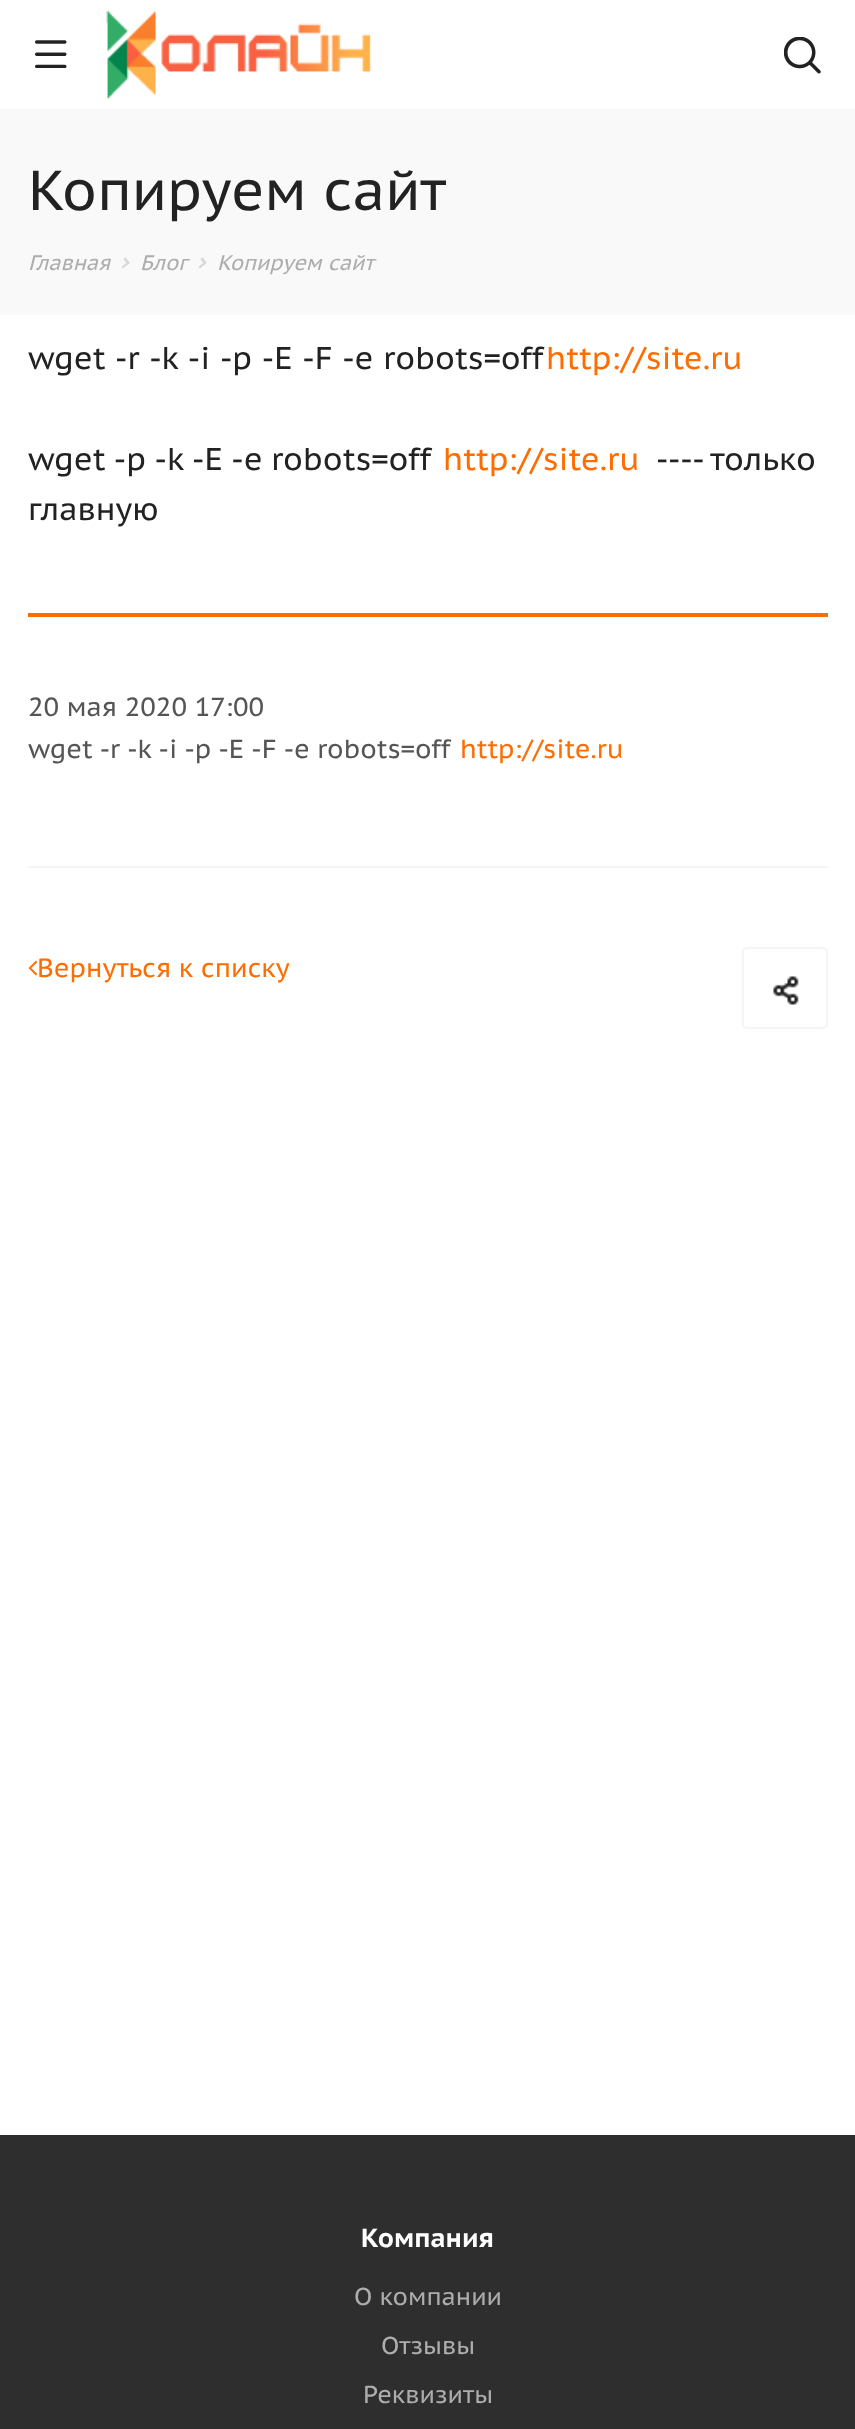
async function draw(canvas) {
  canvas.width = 855
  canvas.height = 2429
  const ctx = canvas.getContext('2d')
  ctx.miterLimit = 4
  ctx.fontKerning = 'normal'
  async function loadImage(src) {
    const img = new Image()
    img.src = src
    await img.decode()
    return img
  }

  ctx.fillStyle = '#fff'
  ctx.fillRect(0, 0, 855, 2429)
  ctx.fillStyle = '#f5f5f5'
  ctx.fillRect(0, 109, 855, 1)
  ctx.drawImage(await loadImage('image0.png'), 35, 40, 32, 28)
  ctx.drawImage(await loadImage('image1.png'), 105, 10, 266, 89)
  ctx.drawImage(await loadImage('image2.png'), 784, 37, 37, 37)
  ctx.fillStyle = '#f9f9f9'
  ctx.fillRect(0, 110, 855, 205)
  ctx.font = '56px PT Sans Caption'
  ctx.fillStyle = '#222'
  ctx.fillText('Копируем сайт', 28, 210)
  ctx.font = 'italic 21px PT Sans Caption'
  ctx.fillStyle = '#adadad'
  ctx.fillText('Главная', 28, 270)
  ctx.drawImage(await loadImage('image3.png'), 121, 257, 9, 12)
  ctx.fillText('Блог', 140, 270)
  ctx.drawImage(await loadImage('image3.png'), 198, 257, 9, 12)
  ctx.fillText('Копируем сайт', 217, 270)
  ctx.fillStyle = '#ff6d00'
  ctx.fillRect(28, 613, 800, 4)
  ctx.wordSpacing = '0.75px'
  ctx.font = '31.5px PT Sans Caption'
  ctx.fillStyle = '#222'
  ctx.fillText('wget -r -k -i -p -E -F -e robots=off', 28, 369)
  ctx.wordSpacing = '0px'
  ctx.fillStyle = '#ff6d00'
  ctx.fillText('http://site.ru', 546, 369)
  ctx.wordSpacing = '-0.5px'
  ctx.fillStyle = '#222'
  ctx.fillText('wget -p -k -E -e robots=off', 28, 470)
  ctx.wordSpacing = '0px'
  ctx.fillStyle = '#ff6d00'
  ctx.fillText('http://site.ru', 443, 470)
  ctx.wordSpacing = '-1px'
  ctx.fillStyle = '#222'
  ctx.fillText('---- только', 656, 470)
  ctx.wordSpacing = '0px'
  ctx.fillText('главную', 28, 520)
  ctx.font = '26.25px PT Sans Caption'
  ctx.fillStyle = '#555'
  ctx.fillText('20 мая 2020 17:00', 28, 716)
  ctx.wordSpacing = '-0.25px'
  ctx.fillText('wget -r -k -i -p -E -F -e robots=off', 28, 758)
  ctx.wordSpacing = '0px'
  ctx.fillStyle = '#ff6d00'
  ctx.fillText('http://site.ru', 460, 758)
  ctx.fillStyle = '#f5f5f5'
  ctx.fillRect(28, 866, 800, 2)
  ctx.drawImage(await loadImage('image4.png'), 28, 960, 10, 16)
  ctx.fillStyle = '#ff6d00'
  ctx.fillText('Вернуться к списку', 37, 977)
  ctx.beginPath()
  ctx.roundRect(743, 948, 84, 80, 4)
  ctx.strokeStyle = '#f5f5f5'
  ctx.lineWidth = 2
  ctx.stroke()
  ctx.fillStyle = '#f5f5f5'
  ctx.fillRect(742, 949, 1, 78)
  ctx.drawImage(await loadImage('image5.png'), 773, 976, 26, 29)
  ctx.fillStyle = '#2e2e2f'
  ctx.fillRect(0, 2135, 855, 294)
  ctx.font = 'bold 26.25px PT Sans Caption'
  ctx.fillStyle = '#fff'
  ctx.fillText('Компания', 361, 2247)
  ctx.font = '24.5px PT Sans Caption'
  ctx.fillStyle = '#adadad'
  ctx.fillText('О компании', 354, 2305)
  ctx.fillText('Отзывы', 381, 2354)
  ctx.fillText('Реквизиты', 363, 2403)
}

draw(document.querySelector('canvas'))
